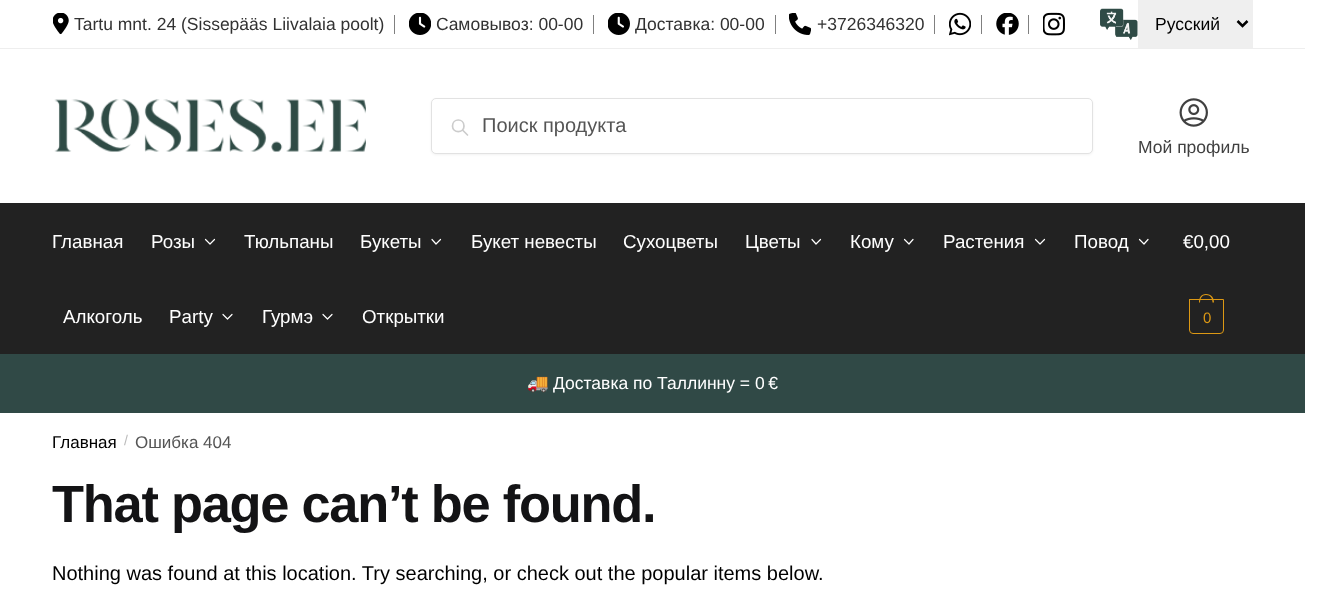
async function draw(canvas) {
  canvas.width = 1323
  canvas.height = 609
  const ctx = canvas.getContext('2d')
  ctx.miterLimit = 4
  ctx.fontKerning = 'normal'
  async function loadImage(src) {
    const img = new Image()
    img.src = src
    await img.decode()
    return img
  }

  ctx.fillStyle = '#fff'
  ctx.fillRect(0, 0, 1323, 609)
  ctx.fillStyle = '#eee'
  ctx.fillRect(0, 48, 1305, 1)
  ctx.drawImage(await loadImage('image0.png'), 53, 13, 16, 22)
  ctx.font = '17.5px Liberation Sans'
  ctx.fillStyle = '#323232'
  ctx.fillText('Tartu mnt. 24 (Sissepääs Liivalaia poolt)', 74, 30)
  ctx.fillStyle = '#808080'
  ctx.fillRect(394, 15, 1, 19)
  ctx.drawImage(await loadImage('image1.png'), 409, 13, 22, 22)
  ctx.fillStyle = '#323232'
  ctx.fillText('Cамовывоз: 00-00', 436, 30)
  ctx.fillStyle = '#808080'
  ctx.fillRect(593, 15, 1, 19)
  ctx.drawImage(await loadImage('image2.png'), 608, 13, 22, 22)
  ctx.fillStyle = '#323232'
  ctx.fillText('Доставка: 00-00', 635, 30)
  ctx.fillStyle = '#808080'
  ctx.fillRect(775, 15, 1, 19)
  ctx.drawImage(await loadImage('image3.png'), 789, 13, 22, 22)
  ctx.fillStyle = '#323232'
  ctx.fillText('+3726346320', 817, 30)
  ctx.fillStyle = '#808080'
  ctx.fillRect(934, 15, 1, 19)
  ctx.drawImage(await loadImage('image4.png'), 949, 12, 22, 24)
  ctx.fillRect(981, 15, 1, 19)
  ctx.drawImage(await loadImage('image5.png'), 996, 13, 23, 22)
  ctx.fillRect(1028, 15, 1, 19)
  ctx.drawImage(await loadImage('image6.png'), 1043, 12, 22, 24)
  ctx.drawImage(await loadImage('image7.png'), 1100, 8, 38, 32)
  ctx.fillStyle = '#efefef'
  ctx.fillRect(1138, 0, 115, 48)
  ctx.beginPath()
  ctx.moveTo(1237.5, 21)
  ctx.lineTo(1242.5, 26)
  ctx.lineTo(1247.5, 21)
  ctx.strokeStyle = '#000'
  ctx.lineWidth = 2.5
  ctx.stroke()
  ctx.fillStyle = '#000'
  ctx.fillText('Русский', 1155, 30)
  ctx.drawImage(await loadImage('image8.png'), 54, 99, 312, 53)
  ctx.fillStyle = '#0000000d'
  ctx.filter = 'blur(1px)'
  ctx.beginPath()
  ctx.roundRect(431, 99, 662, 56, 5)
  ctx.fill()
  ctx.filter = 'none'
  ctx.fillStyle = '#fff'
  ctx.beginPath()
  ctx.roundRect(431.5, 98.5, 661, 55, 4.5)
  ctx.fill()
  ctx.strokeStyle = '#e2e2e2'
  ctx.lineWidth = 1
  ctx.stroke()
  ctx.beginPath()
  ctx.moveTo(467.5, 135)
  ctx.lineTo(462.5, 130)
  ctx.moveTo(464, 126)
  ctx.bezierCurveTo(464, 133.5, 452.5, 133.5, 452.5, 126)
  ctx.bezierCurveTo(452.5, 118, 464, 118, 464, 126)
  ctx.closePath()
  ctx.strokeStyle = '#ccc'
  ctx.lineWidth = 1.7
  ctx.lineCap = 'round'
  ctx.lineJoin = 'round'
  ctx.stroke()
  ctx.font = '20px Liberation Sans'
  ctx.fillStyle = '#555'
  ctx.fillText('Поиск продукта', 482, 132)
  ctx.drawImage(await loadImage('image9.png'), 1179, 98, 29, 29)
  ctx.font = '17.5px Liberation Sans'
  ctx.fillStyle = '#404040'
  ctx.fillText('Мой профиль', 1138, 153)
  ctx.fillStyle = '#222'
  ctx.fillRect(0, 203, 1305, 151)
  ctx.font = '18.75px Liberation Sans'
  ctx.fillStyle = '#fff'
  ctx.fillText('Главная', 52, 248)
  ctx.fillText('Розы', 151, 248)
  ctx.beginPath()
  ctx.moveTo(214.5, 239.5)
  ctx.lineTo(210, 244)
  ctx.lineTo(205.5, 239.5)
  ctx.strokeStyle = '#fff'
  ctx.lineWidth = 1.2
  ctx.stroke()
  ctx.fillText('Тюльпаны', 244, 248)
  ctx.fillText('Букеты', 360, 248)
  ctx.beginPath()
  ctx.moveTo(440.5, 239.5)
  ctx.lineTo(436, 244)
  ctx.lineTo(432, 239.5)
  ctx.stroke()
  ctx.fillText('Букет невесты', 471, 248)
  ctx.fillText('Сухоцветы', 623, 248)
  ctx.fillText('Цветы', 745, 248)
  ctx.beginPath()
  ctx.moveTo(820.5, 239.5)
  ctx.lineTo(816, 244)
  ctx.lineTo(812, 239.5)
  ctx.stroke()
  ctx.fillText('Кому', 850, 248)
  ctx.beginPath()
  ctx.moveTo(913, 239.5)
  ctx.lineTo(909, 244)
  ctx.lineTo(904.5, 239.5)
  ctx.stroke()
  ctx.fillText('Растения', 943, 248)
  ctx.beginPath()
  ctx.moveTo(1044.5, 239.5)
  ctx.lineTo(1040, 244)
  ctx.lineTo(1035.5, 239.5)
  ctx.stroke()
  ctx.fillText('Повод', 1074, 248)
  ctx.beginPath()
  ctx.moveTo(1148, 239.5)
  ctx.lineTo(1144, 244)
  ctx.lineTo(1139.5, 239.5)
  ctx.stroke()
  ctx.fillText('Алкоголь', 63, 323)
  ctx.fillText('Party', 169, 323)
  ctx.beginPath()
  ctx.moveTo(232, 314.5)
  ctx.lineTo(227.5, 319)
  ctx.lineTo(223, 314.5)
  ctx.stroke()
  ctx.fillText('Гурмэ', 262, 323)
  ctx.beginPath()
  ctx.moveTo(332, 314.5)
  ctx.lineTo(327.5, 319)
  ctx.lineTo(323, 314.5)
  ctx.stroke()
  ctx.fillText('Открытки', 362, 323)
  ctx.fillText('€0,00', 1183, 248)
  ctx.beginPath()
  ctx.roundRect(1189.5, 299.5, 34, 34, [0, 0, 3.5, 3.5])
  ctx.strokeStyle = '#dc9814'
  ctx.lineWidth = 1
  ctx.lineJoin = 'miter'
  ctx.stroke()
  ctx.fillStyle = '#dc9814'
  ctx.beginPath()
  ctx.moveTo(1206, 294)
  ctx.bezierCurveTo(1211.5, 294, 1214, 298, 1214, 302.5)
  ctx.lineTo(1199, 302.5)
  ctx.bezierCurveTo(1199, 298, 1201, 294, 1206, 294)
  ctx.closePath()
  ctx.moveTo(1206, 295)
  ctx.bezierCurveTo(1210.5, 295, 1212.5, 298.5, 1212.5, 302.5)
  ctx.lineTo(1200, 302.5)
  ctx.bezierCurveTo(1200, 298.5, 1202, 295, 1206, 295)
  ctx.closePath()
  ctx.fill('evenodd')
  ctx.letterSpacing = '-1px'
  ctx.font = '15px Liberation Sans'
  ctx.fillText('0', 1203, 323)
  ctx.fillStyle = '#304946'
  ctx.fillRect(0, 354, 1305, 59)
  ctx.letterSpacing = '0px'
  ctx.font = '17.5px Noto Color Emoji'
  ctx.fillStyle = '#fff'
  ctx.fillText('🚚', 527, 389)
  ctx.font = '17.5px Liberation Sans'
  ctx.fillText('Доставка по Таллинну = 0 €', 553, 389)
  ctx.font = '17px Liberation Sans'
  ctx.fillStyle = '#000'
  ctx.fillText('Главная', 52, 448)
  ctx.font = '14px Liberation Sans'
  ctx.fillStyle = '#bbb'
  ctx.fillText('/', 124, 445)
  ctx.font = '17px Liberation Sans'
  ctx.fillStyle = '#555'
  ctx.fillText('Ошибка 404', 135, 448)
  ctx.letterSpacing = '-1.25px'
  ctx.font = 'bold 52.4px Liberation Sans'
  ctx.fillStyle = '#131315'
  ctx.fillText('That page can’t be found.', 52, 522)
  ctx.letterSpacing = '0px'
  ctx.font = '20px Liberation Sans'
  ctx.fillStyle = '#000'
  ctx.fillText('Nothing was found at this location. Try searching, or check out the popular items below.', 52, 580)
}

draw(document.querySelector('canvas'))
